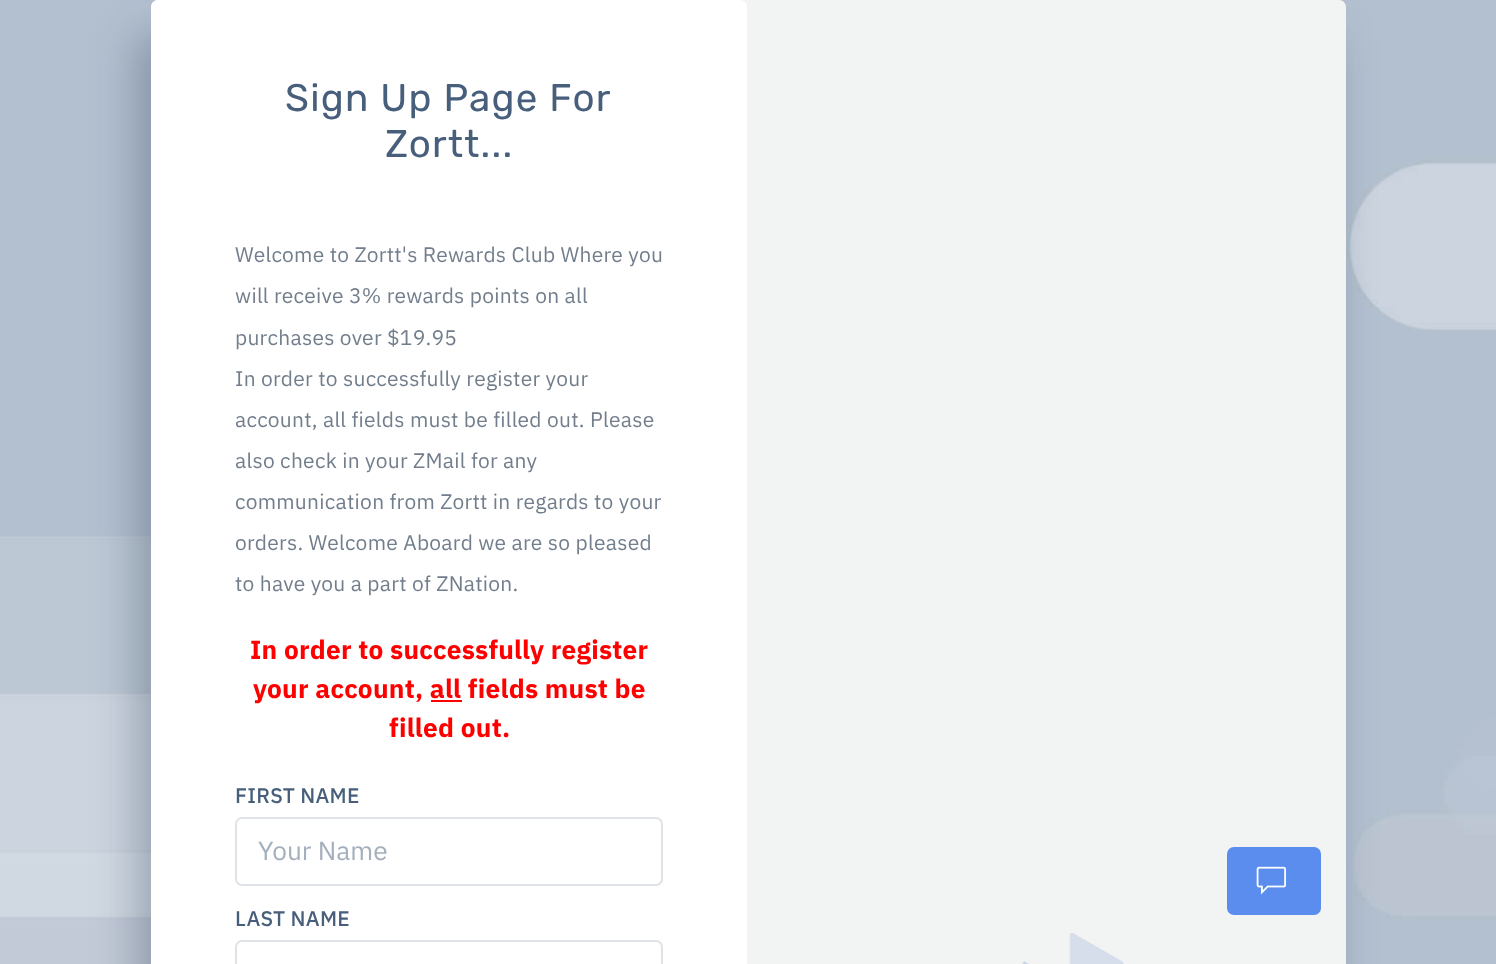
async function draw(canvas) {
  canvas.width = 1496
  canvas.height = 964
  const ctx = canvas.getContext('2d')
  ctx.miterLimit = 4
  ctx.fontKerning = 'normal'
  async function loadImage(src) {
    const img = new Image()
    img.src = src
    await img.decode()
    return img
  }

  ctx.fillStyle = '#fff'
  ctx.fillRect(0, 0, 1496, 964)
  ctx.drawImage(await loadImage('image0.png'), 0, 0, 1496, 964)
  ctx.fillStyle = '#192a464d'
  ctx.filter = 'blur(22px)'
  ctx.beginPath()
  ctx.roundRect(137, 35, 1195, 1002, 7)
  ctx.fill()
  ctx.filter = 'none'
  ctx.fillStyle = '#f2f4f4'
  ctx.beginPath()
  ctx.roundRect(151, 0, 1195, 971, 7)
  ctx.fill()
  ctx.fillStyle = '#fff'
  ctx.beginPath()
  ctx.roundRect(151, 0, 596, 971, 7)
  ctx.fill()
  ctx.letterSpacing = '1.25px'
  ctx.font = '38.5px Rubik'
  ctx.fillStyle = '#475f7b'
  ctx.fillText('Sign Up Page For', 285, 111)
  ctx.fillText('Zortt...', 385, 157)
  ctx.letterSpacing = '0.25px'
  ctx.font = '21px IBM Plex Sans'
  ctx.fillStyle = '#727e8c'
  ctx.fillText('Welcome to Zortt\'s Rewards Club Where you', 235, 262)
  ctx.fillText('will receive 3% rewards points on all', 235, 303)
  ctx.fillText('purchases over $19.95', 235, 345)
  ctx.fillText('In order to successfully register your', 235, 386)
  ctx.fillText('account, all fields must be filled out. Please', 235, 427)
  ctx.fillText('also check in your ZMail for any', 235, 468)
  ctx.fillText('communication from Zortt in regards to your', 235, 509)
  ctx.fillText('orders. Welcome Aboard we are so pleased', 235, 550)
  ctx.fillText('to have you a part of ZNation.', 235, 591)
  ctx.font = 'bold 26.25px IBM Plex Sans'
  ctx.fillStyle = '#f00'
  ctx.fillText('In order to successfully register', 250, 659)
  ctx.fillText('your account, all fields must be', 253, 698)
  ctx.fillRect(431, 700, 31, 2)
  ctx.fillText('filled out.', 389, 737)
  ctx.font = '500 21px IBM Plex Sans'
  ctx.fillStyle = '#475f7b'
  ctx.fillText('FIRST NAME', 235, 803)
  ctx.beginPath()
  ctx.roundRect(236, 818, 426, 67, 6)
  ctx.strokeStyle = '#dfe3e7'
  ctx.lineWidth = 2
  ctx.stroke()
  ctx.letterSpacing = '0px'
  ctx.font = '26.25px IBM Plex Sans'
  ctx.fillStyle = '#a3afbd'
  ctx.fillText('Your Name', 258, 860)
  ctx.letterSpacing = '0.25px'
  ctx.font = '500 21px IBM Plex Sans'
  ctx.fillStyle = '#475f7b'
  ctx.fillText('LAST NAME', 235, 926)
  ctx.beginPath()
  ctx.roundRect(236, 941, 426, 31, 6)
  ctx.stroke()
  ctx.drawImage(await loadImage('image1.png'), 1022, 933, 102, 31)
  ctx.fillStyle = '#5a8dee'
  ctx.beginPath()
  ctx.roundRect(1227, 847, 94, 68, 7)
  ctx.fill()
  ctx.drawImage(await loadImage('image2.png'), 1256, 866, 30, 29)
}

draw(document.querySelector('canvas'))
